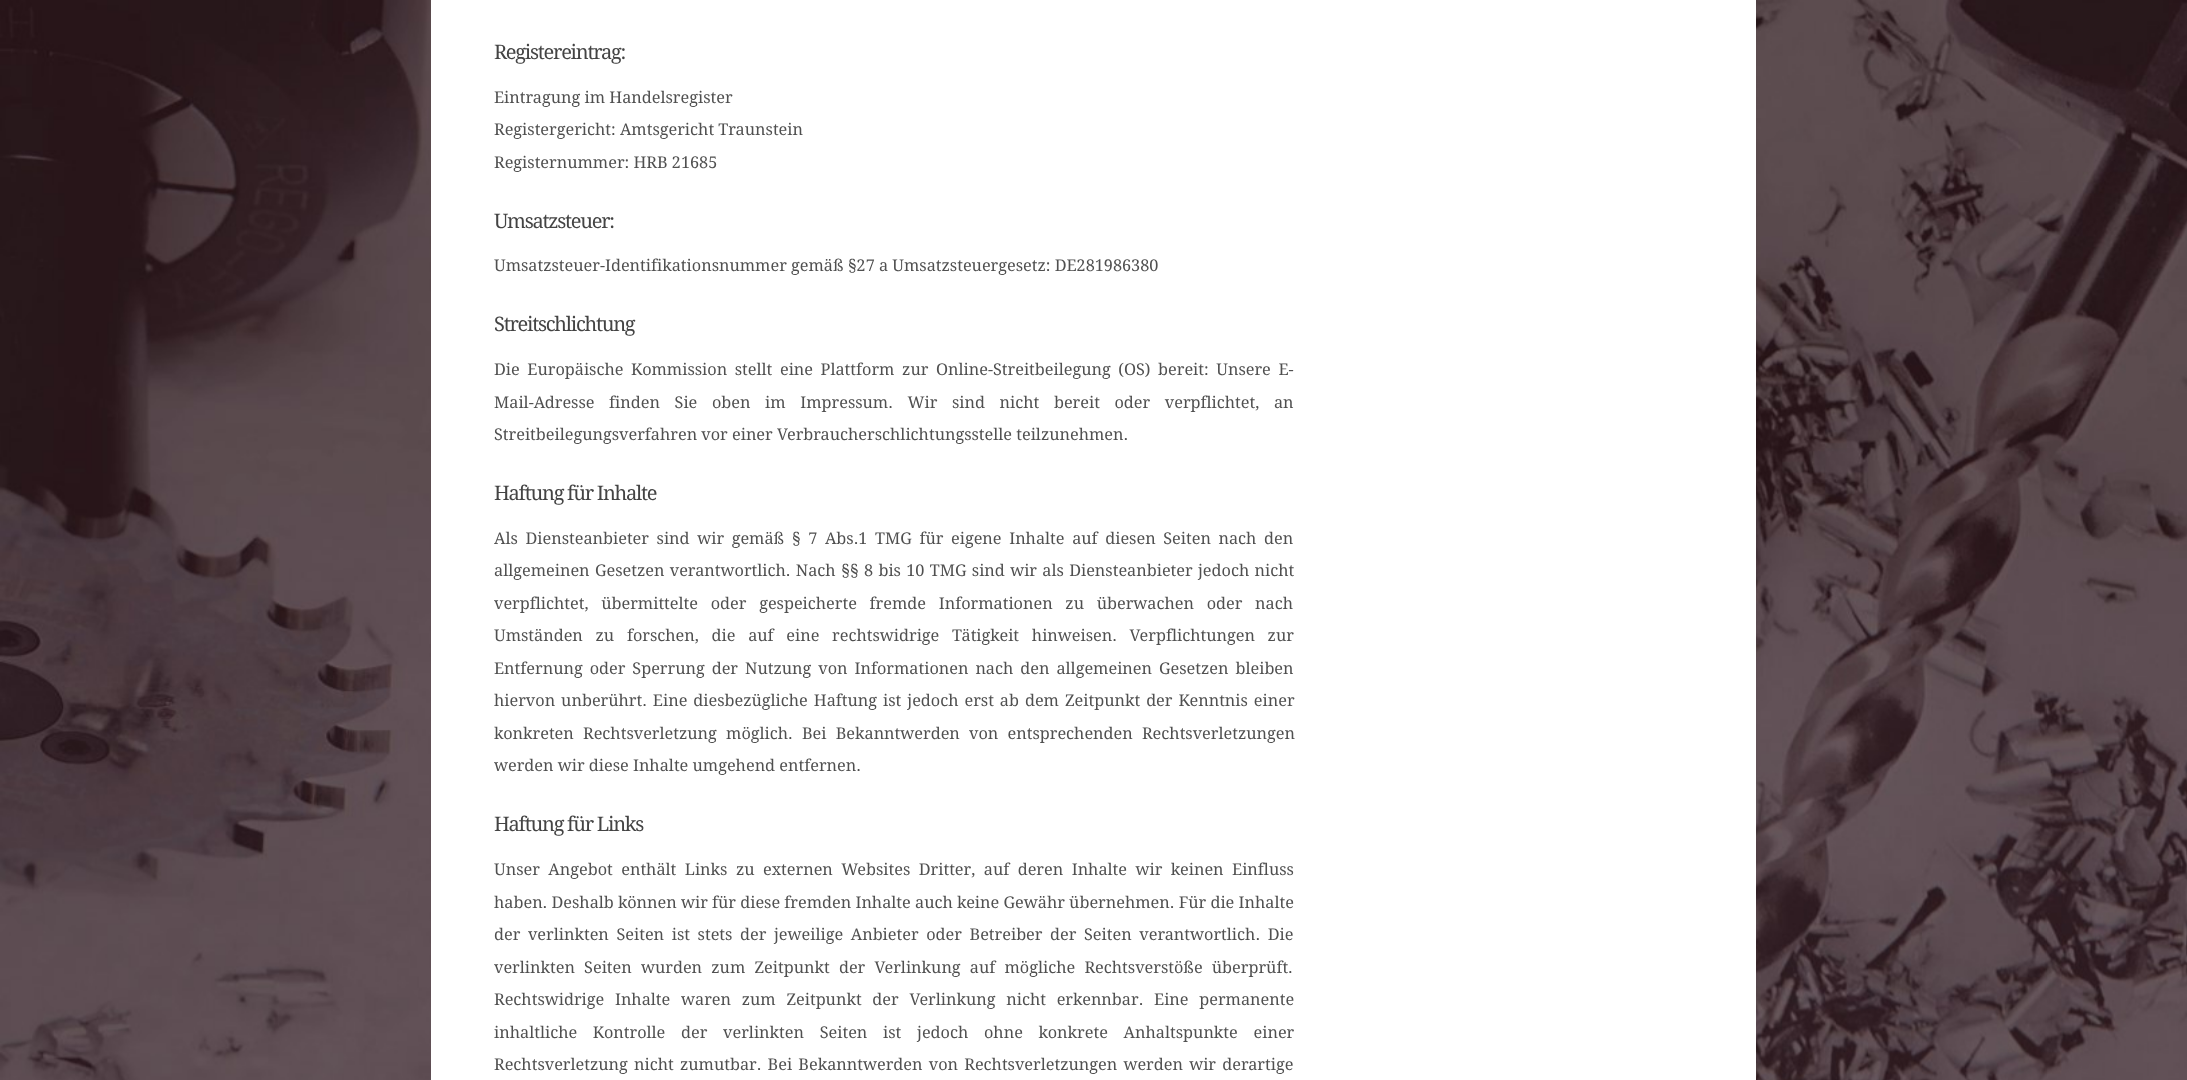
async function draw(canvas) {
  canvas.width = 2187
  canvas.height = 1080
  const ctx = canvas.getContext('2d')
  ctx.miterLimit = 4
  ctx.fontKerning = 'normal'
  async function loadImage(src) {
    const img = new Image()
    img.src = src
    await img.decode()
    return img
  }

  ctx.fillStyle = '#fff'
  ctx.fillRect(0, 0, 2187, 1080)
  ctx.drawImage(await loadImage('image0.png'), 0, 0, 2187, 1080)
  ctx.fillRect(431, 0, 1325, 1080)
  ctx.letterSpacing = '-1.25px'
  ctx.font = '20px Droid Serif'
  ctx.fillStyle = '#444'
  ctx.fillText('Registereintrag:', 494, 59)
  ctx.letterSpacing = '0px'
  ctx.font = '16.25px Droid Serif'
  ctx.fillStyle = '#505050'
  ctx.fillText('Eintragung im Handelsregister', 494, 103)
  ctx.fillText('Registergericht: Amtsgericht Traunstein', 494, 135)
  ctx.fillText('Registernummer: HRB 21685', 494, 168)
  ctx.letterSpacing = '-1.25px'
  ctx.font = '20px Droid Serif'
  ctx.fillStyle = '#444'
  ctx.fillText('Umsatzsteuer:', 494, 228)
  ctx.letterSpacing = '0px'
  ctx.font = '16.25px Droid Serif'
  ctx.fillStyle = '#505050'
  ctx.fillText('Umsatzsteuer-Identifikationsnummer gemäß §27 a Umsatzsteuergesetz: DE281986380', 494, 271)
  ctx.letterSpacing = '-1.25px'
  ctx.font = '20px Droid Serif'
  ctx.fillStyle = '#444'
  ctx.fillText('Streitschlichtung', 494, 331)
  ctx.letterSpacing = '0px'
  ctx.wordSpacing = '3.4px'
  ctx.font = '16.25px Droid Serif'
  ctx.fillStyle = '#505050'
  ctx.fillText('Die Europäische Kommission stellt eine Plattform zur Online-Streitbeilegung (OS) bereit: Unsere E-', 494, 375)
  ctx.wordSpacing = '10.4px'
  ctx.fillText('Mail-Adresse finden Sie oben im Impressum. Wir sind nicht bereit oder verpflichtet, an', 494, 408)
  ctx.wordSpacing = '0px'
  ctx.fillText('Streitbeilegungsverfahren vor einer Verbraucherschlichtungsstelle teilzunehmen.', 494, 440)
  ctx.letterSpacing = '-1.25px'
  ctx.font = '20px Droid Serif'
  ctx.fillStyle = '#444'
  ctx.fillText('Haftung für Inhalte', 494, 500)
  ctx.letterSpacing = '0px'
  ctx.wordSpacing = '3.4px'
  ctx.font = '16.25px Droid Serif'
  ctx.fillStyle = '#505050'
  ctx.fillText('Als Diensteanbieter sind wir gemäß § 7 Abs.1 TMG für eigene Inhalte auf diesen Seiten nach den', 494, 544)
  ctx.wordSpacing = '1.1px'
  ctx.fillText('allgemeinen Gesetzen verantwortlich. Nach §§ 8 bis 10 TMG sind wir als Diensteanbieter jedoch nicht', 494, 576)
  ctx.wordSpacing = '8.5px'
  ctx.fillText('verpflichtet, übermittelte oder gespeicherte fremde Informationen zu überwachen oder nach', 494, 609)
  ctx.fillText('Umständen zu forschen, die auf eine rechtswidrige Tätigkeit hinweisen. Verpflichtungen zur', 494, 641)
  ctx.wordSpacing = '2.75px'
  ctx.fillText('Entfernung oder Sperrung der Nutzung von Informationen nach den allgemeinen Gesetzen bleiben', 494, 674)
  ctx.wordSpacing = '1.75px'
  ctx.fillText('hiervon unberührt. Eine diesbezügliche Haftung ist jedoch erst ab dem Zeitpunkt der Kenntnis einer', 494, 706)
  ctx.wordSpacing = '5px'
  ctx.fillText('konkreten Rechtsverletzung möglich. Bei Bekanntwerden von entsprechenden Rechtsverletzungen', 494, 739)
  ctx.wordSpacing = '0px'
  ctx.fillText('werden wir diese Inhalte umgehend entfernen.', 494, 771)
  ctx.letterSpacing = '-1.25px'
  ctx.font = '20px Droid Serif'
  ctx.fillStyle = '#444'
  ctx.fillText('Haftung für Links', 494, 831)
  ctx.letterSpacing = '0px'
  ctx.wordSpacing = '4.25px'
  ctx.font = '16.25px Droid Serif'
  ctx.fillStyle = '#505050'
  ctx.fillText('Unser Angebot enthält Links zu externen Websites Dritter, auf deren Inhalte wir keinen Einfluss', 494, 875)
  ctx.wordSpacing = '0px'
  ctx.fillText('haben. Deshalb können wir für diese fremden Inhalte auch keine Gewähr übernehmen. Für die Inhalte', 494, 908)
  ctx.wordSpacing = '3.4px'
  ctx.fillText('der verlinkten Seiten ist stets der jeweilige Anbieter oder Betreiber der Seiten verantwortlich. Die', 494, 940)
  ctx.wordSpacing = '5px'
  ctx.fillText('verlinkten Seiten wurden zum Zeitpunkt der Verlinkung auf mögliche Rechtsverstöße überprüft.', 494, 973)
  ctx.wordSpacing = '6.5px'
  ctx.fillText('Rechtswidrige Inhalte waren zum Zeitpunkt der Verlinkung nicht erkennbar. Eine permanente', 494, 1005)
  ctx.wordSpacing = '11.5px'
  ctx.fillText('inhaltliche Kontrolle der verlinkten Seiten ist jedoch ohne konkrete Anhaltspunkte einer', 494, 1038)
  ctx.wordSpacing = '2px'
  ctx.fillText('Rechtsverletzung nicht zumutbar. Bei Bekanntwerden von Rechtsverletzungen werden wir derartige', 494, 1070)
}

draw(document.querySelector('canvas'))
